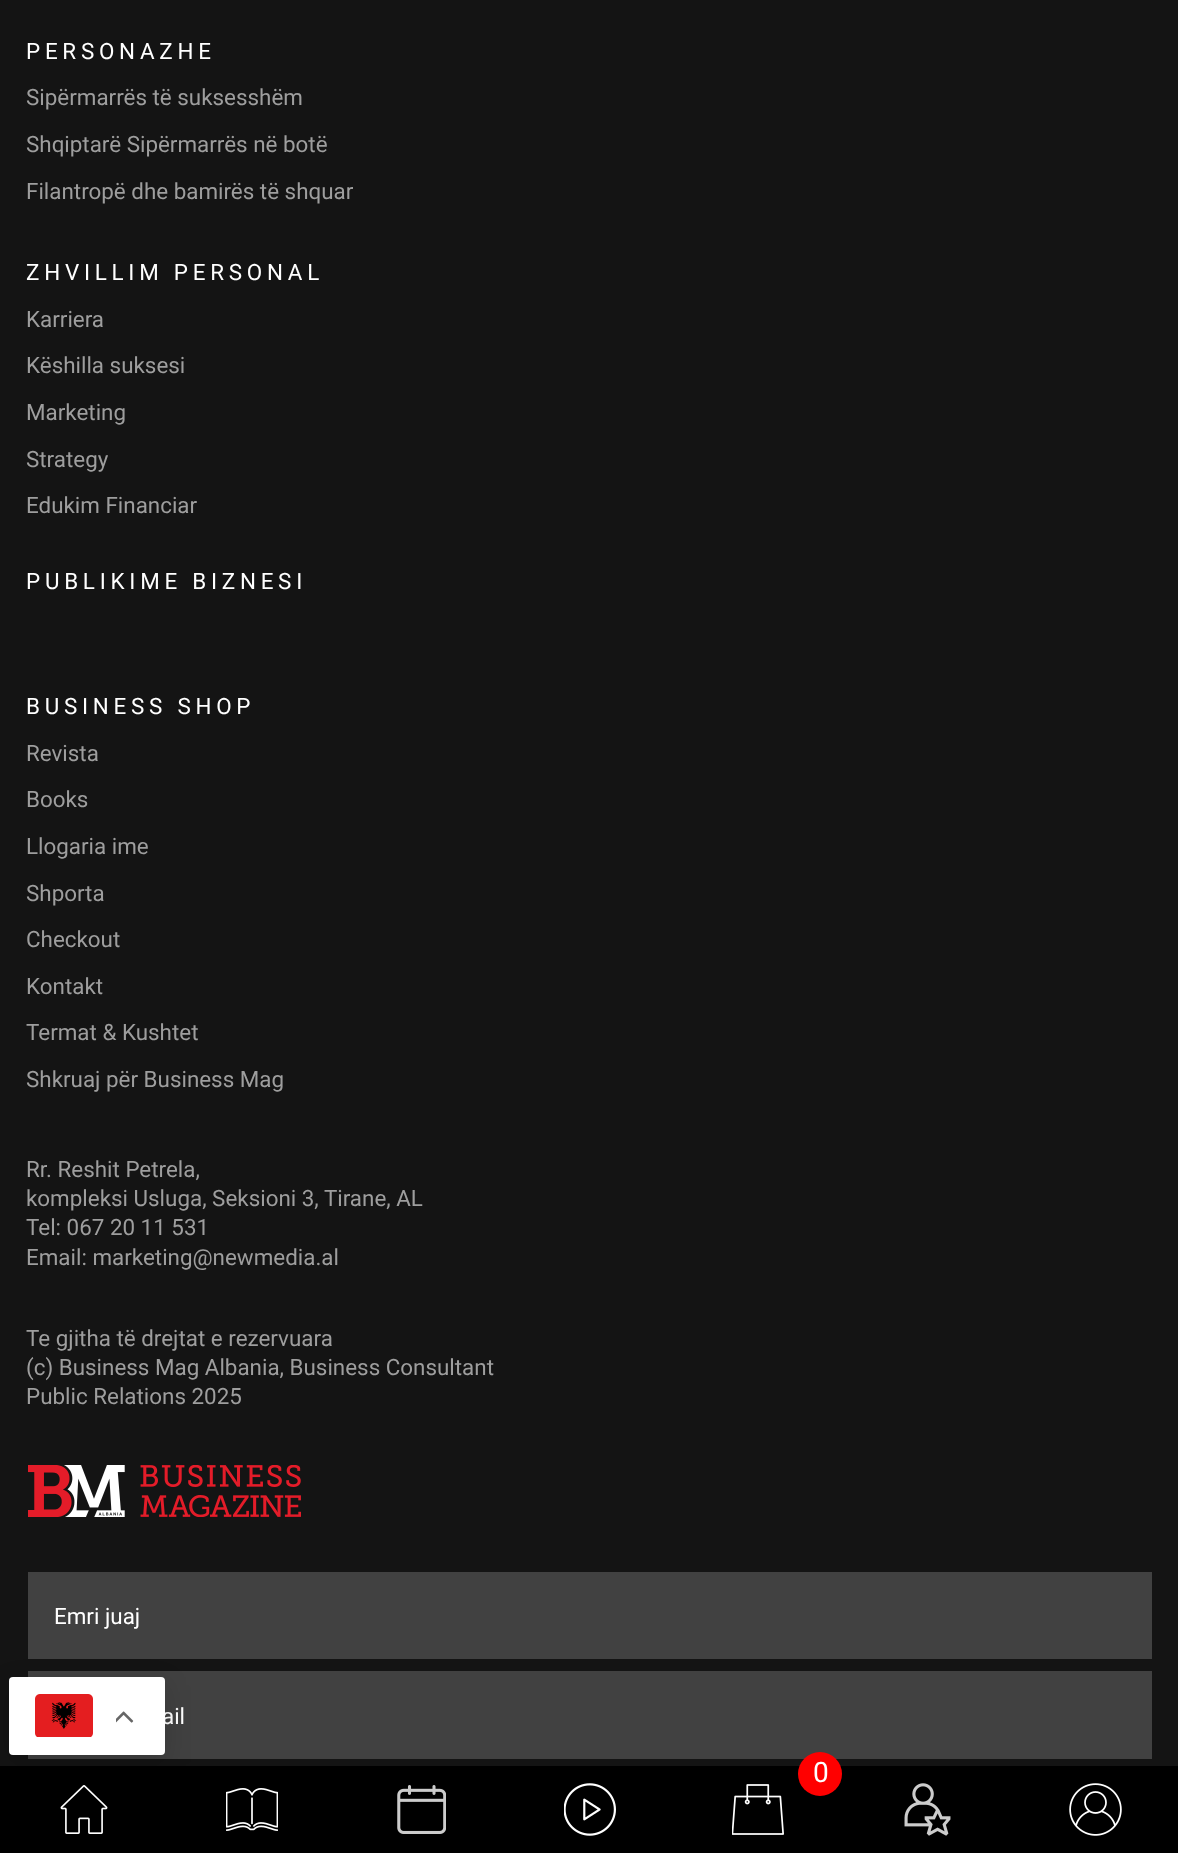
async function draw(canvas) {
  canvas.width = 1178
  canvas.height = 1853
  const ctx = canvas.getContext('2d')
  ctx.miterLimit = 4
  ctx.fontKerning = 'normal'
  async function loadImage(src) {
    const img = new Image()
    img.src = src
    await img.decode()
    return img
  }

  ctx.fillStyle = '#141414'
  ctx.fillRect(0, 0, 1178, 1853)
  ctx.letterSpacing = '4.75px'
  ctx.font = '22.4px Roboto'
  ctx.fillStyle = '#fff'
  ctx.fillText('PERSONAZHE', 26, 59)
  ctx.letterSpacing = '0px'
  ctx.fillStyle = '#9e9e9e'
  ctx.fillText('Sipërmarrës të suksesshëm', 26, 105)
  ctx.fillText('Shqiptarë Sipërmarrës në botë', 26, 152)
  ctx.fillText('Filantropë dhe bamirës të shquar', 26, 199)
  ctx.letterSpacing = '4.75px'
  ctx.fillStyle = '#fff'
  ctx.fillText('ZHVILLIM PERSONAL', 26, 280)
  ctx.letterSpacing = '0px'
  ctx.fillStyle = '#9e9e9e'
  ctx.fillText('Karriera', 26, 327)
  ctx.fillText('Këshilla suksesi', 26, 373)
  ctx.fillText('Marketing', 26, 420)
  ctx.fillText('Strategy', 26, 467)
  ctx.fillText('Edukim Financiar', 26, 513)
  ctx.letterSpacing = '4.75px'
  ctx.fillStyle = '#fff'
  ctx.fillText('PUBLIKIME BIZNESI', 26, 589)
  ctx.fillText('BUSINESS SHOP', 26, 714)
  ctx.letterSpacing = '0px'
  ctx.fillStyle = '#9e9e9e'
  ctx.fillText('Revista', 26, 761)
  ctx.fillText('Books', 26, 807)
  ctx.fillText('Llogaria ime', 26, 854)
  ctx.fillText('Shporta', 26, 901)
  ctx.fillText('Checkout', 26, 947)
  ctx.fillText('Kontakt', 26, 994)
  ctx.fillText('Termat & Kushtet', 26, 1040)
  ctx.fillText('Shkruaj për Business Mag', 26, 1087)
  ctx.fillText('Rr. Reshit Petrela,', 26, 1177)
  ctx.fillText('kompleksi Usluga, Seksioni 3, Tirane, AL', 26, 1206)
  ctx.fillText('Tel: 067 20 11 531', 26, 1235)
  ctx.fillText('Email: marketing@newmedia.al', 26, 1265)
  ctx.fillText('Te gjitha të drejtat e rezervuara', 26, 1346)
  ctx.fillText('(c) Business Mag Albania, Business Consultant', 26, 1375)
  ctx.fillText('Public Relations 2025', 26, 1404)
  ctx.drawImage(await loadImage('image0.png'), 28, 1465, 273, 52)
  ctx.fillStyle = '#414141'
  ctx.fillRect(28, 1572, 1124, 87)
  ctx.fillStyle = '#fff'
  ctx.fillText('Emri juaj', 54, 1624)
  ctx.fillStyle = '#414141'
  ctx.fillRect(28, 1671, 1124, 88)
  ctx.fillStyle = '#fff'
  ctx.fillText('ail', 162, 1724)
  ctx.fillStyle = '#000'
  ctx.fillRect(0, 1766, 1178, 87)
  ctx.drawImage(await loadImage('image4.png'), 60, 1785, 48, 49)
  ctx.fillStyle = '#00000026'
  ctx.filter = 'blur(13px)'
  ctx.beginPath()
  ctx.roundRect(9, 1685, 156, 79, 4)
  ctx.fill()
  ctx.filter = 'none'
  ctx.fillStyle = '#fff'
  ctx.beginPath()
  ctx.roundRect(9, 1677, 156, 78, 4)
  ctx.fill()
  ctx.drawImage(await loadImage('image1.png'), 35, 1694, 58, 43)
  ctx.drawImage(await loadImage('image2.png'), 116, 1711, 18, 12)
  ctx.fillStyle = '#f00'
  ctx.beginPath()
  ctx.arc(820, 1774, 22, 0, 2 * Math.PI)
  ctx.fill()
  ctx.font = '28px Roboto'
  ctx.fillStyle = '#fff'
  ctx.fillText('0', 813, 1782)
  ctx.drawImage(await loadImage('image3.png'), 732, 1784, 52, 51)
  ctx.drawImage(await loadImage('image5.png'), 226, 1788, 52, 43)
  ctx.drawImage(await loadImage('image6.png'), 397, 1785, 49, 49)
  ctx.drawImage(await loadImage('image7.png'), 564, 1783, 52, 53)
  ctx.drawImage(await loadImage('image8.png'), 904, 1783, 47, 53)
  ctx.drawImage(await loadImage('image9.png'), 1069, 1783, 53, 53)
}

draw(document.querySelector('canvas'))
